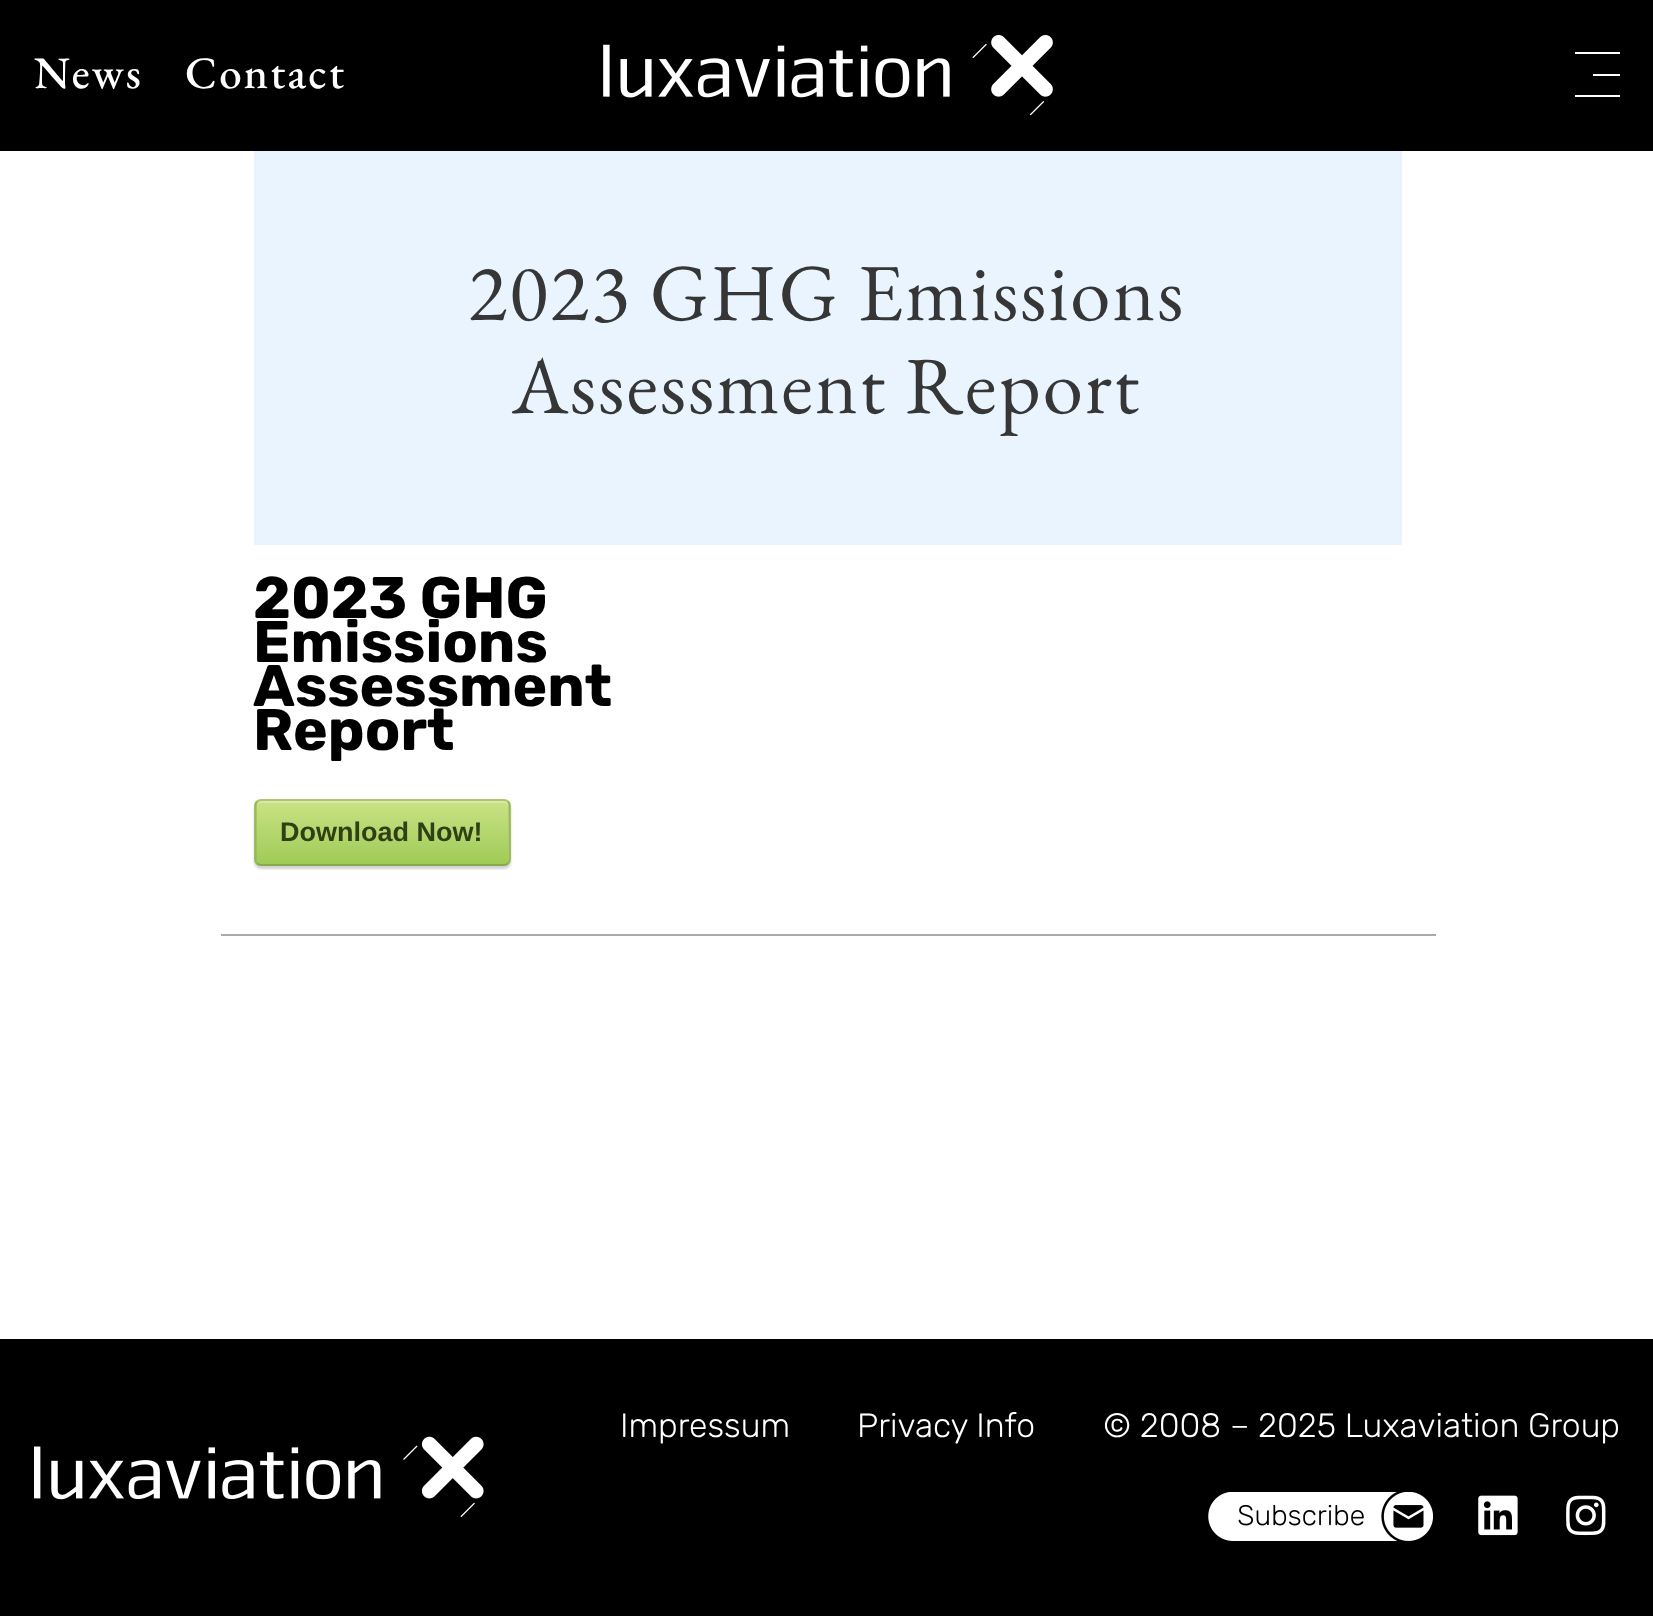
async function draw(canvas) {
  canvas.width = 1653
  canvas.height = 1616
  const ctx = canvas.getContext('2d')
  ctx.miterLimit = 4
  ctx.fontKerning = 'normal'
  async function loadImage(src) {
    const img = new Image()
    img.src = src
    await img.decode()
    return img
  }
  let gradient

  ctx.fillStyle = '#fff'
  ctx.fillRect(0, 0, 1653, 1616)
  ctx.fillStyle = '#000'
  ctx.fillRect(0, 0, 1653, 151)
  ctx.letterSpacing = '2.25px'
  ctx.font = '500 45px EB Garamond'
  ctx.fillStyle = '#fff'
  ctx.fillText('News', 34, 88)
  ctx.fillText('Contact', 185, 88)
  ctx.drawImage(await loadImage('image0.png'), 603, 35, 450, 81)
  ctx.fillRect(1575, 52, 45, 2)
  ctx.fillRect(1593, 74, 27, 2)
  ctx.fillRect(1575, 95, 45, 2)
  ctx.fillStyle = '#eaf4ff'
  ctx.fillRect(254, 151, 1148, 394)
  ctx.letterSpacing = '2px'
  ctx.font = '81px EB Garamond'
  ctx.fillStyle = '#363636'
  ctx.fillText('2023 GHG Emissions', 468, 320)
  ctx.fillText('Assessment Report', 512, 413)
  ctx.letterSpacing = '0px'
  ctx.font = 'bold 58.5px Rubik'
  ctx.fillStyle = '#000'
  ctx.fillText('2023 GHG', 253, 618)
  ctx.fillText('Emissions', 253, 662)
  ctx.fillText('Assessment', 253, 706)
  ctx.fillText('Report', 253, 750)
  ctx.fillStyle = '#d3d3d3'
  ctx.filter = 'blur(1px)'
  ctx.beginPath()
  ctx.roundRect(254, 801, 257, 68, 7)
  ctx.fill()
  ctx.filter = 'none'
  ctx.save()
  ctx.beginPath()
  ctx.roundRect(254, 799, 257, 67, 7)
  ctx.clip()
  gradient = ctx.createLinearGradient(257, 801, 257, 864)
  gradient.addColorStop(0, '#cae285')
  gradient.addColorStop(1, '#9fcb57')
  ctx.fillStyle = gradient
  ctx.fillRect(254, 801, 257, 63)
  ctx.restore()
  ctx.fillStyle = '#d7e9a4'
  ctx.beginPath()
  ctx.moveTo(261, 803)
  ctx.lineTo(504, 803)
  ctx.bezierCurveTo(506, 803, 508, 805, 508, 808)
  ctx.lineTo(508, 862)
  ctx.bezierCurveTo(509, 861, 509, 860, 509, 859)
  ctx.lineTo(509, 806)
  ctx.bezierCurveTo(509, 803, 507, 801, 504, 801)
  ctx.lineTo(262, 801)
  ctx.bezierCurveTo(260, 801, 258, 803, 257, 805)
  ctx.bezierCurveTo(258, 804, 260, 803, 261, 803)
  ctx.closePath()
  ctx.fill()
  ctx.beginPath()
  ctx.moveTo(257, 801.5)
  ctx.bezierCurveTo(258, 800.5, 259.5, 800, 261, 800)
  ctx.lineTo(504, 800)
  ctx.bezierCurveTo(505.5, 800, 507, 800.5, 508, 801.5)
  ctx.strokeStyle = '#adc671'
  ctx.lineWidth = 2.2
  ctx.stroke()
  ctx.beginPath()
  ctx.moveTo(508, 801.5)
  ctx.bezierCurveTo(509, 802.5, 509.5, 804, 509.5, 805.5)
  ctx.lineTo(509.5, 859.5)
  ctx.bezierCurveTo(509.5, 861, 509, 862.5, 508, 863.5)
  ctx.strokeStyle = '#98b65b'
  ctx.stroke()
  ctx.beginPath()
  ctx.moveTo(508, 863.5)
  ctx.bezierCurveTo(507, 864.5, 505.5, 865, 504, 865)
  ctx.lineTo(261, 865)
  ctx.bezierCurveTo(259.5, 865, 258, 864.5, 257, 863.5)
  ctx.strokeStyle = '#87aa4a'
  ctx.stroke()
  ctx.beginPath()
  ctx.moveTo(257, 863.5)
  ctx.bezierCurveTo(256, 862.5, 255.5, 861, 255.5, 859.5)
  ctx.lineTo(255.5, 805.5)
  ctx.bezierCurveTo(255.5, 804, 256, 802.5, 257, 801.5)
  ctx.strokeStyle = '#98b65b'
  ctx.stroke()
  ctx.font = 'bold 27px Liberation Sans'
  ctx.fillStyle = '#2f4014'
  ctx.fillText('Download Now!', 280, 841)
  ctx.fillStyle = '#aaa'
  ctx.fillRect(221, 934, 1215, 2)
  ctx.fillStyle = '#000'
  ctx.fillRect(0, 1339, 1653, 277)
  ctx.font = '300 33.75px Rubik'
  ctx.fillStyle = '#fff'
  ctx.fillText('Impressum', 620, 1437)
  ctx.fillText('Privacy Info', 857, 1437)
  ctx.fillText('© 2008 – 2025 Luxaviation Group', 1103, 1437)
  ctx.drawImage(await loadImage('image1.png'), 1208, 1492, 225, 49)
  ctx.drawImage(await loadImage('image2.png'), 1478, 1495, 40, 41)
  ctx.drawImage(await loadImage('image3.png'), 1566, 1495, 40, 41)
  ctx.drawImage(await loadImage('image4.png'), 34, 1436, 450, 81)
}

draw(document.querySelector('canvas'))
